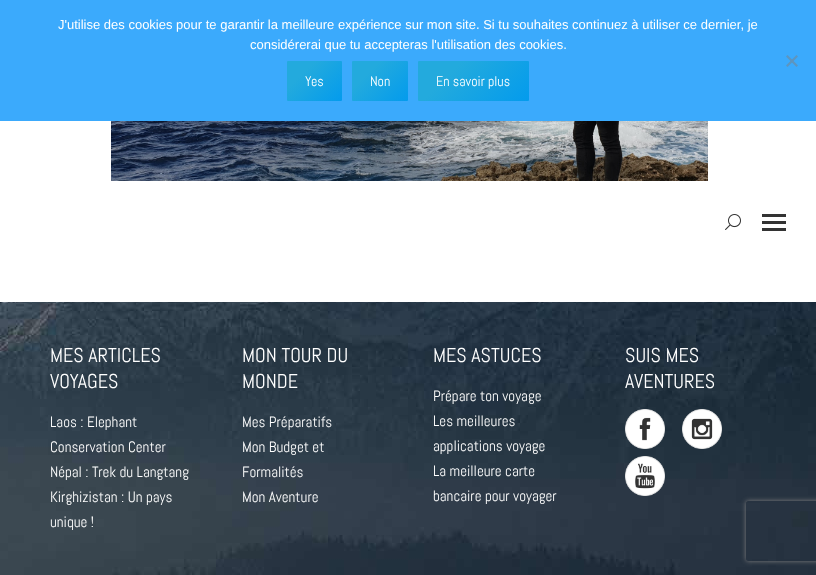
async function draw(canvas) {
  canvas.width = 816
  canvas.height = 575
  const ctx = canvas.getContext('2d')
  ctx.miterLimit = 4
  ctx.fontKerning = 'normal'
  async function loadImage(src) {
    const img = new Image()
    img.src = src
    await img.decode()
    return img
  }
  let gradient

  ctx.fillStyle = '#fff'
  ctx.fillRect(0, 0, 816, 575)
  ctx.fillStyle = '#3baafc'
  ctx.fillRect(0, 0, 816, 121)
  ctx.font = '13px Liberation Sans'
  ctx.fillStyle = '#fff'
  ctx.fillText('J\'utilise des cookies pour te garantir la meilleure expérience sur mon site. Si tu souhaites continuez à utiliser ce dernier, je', 58, 29)
  ctx.fillText('considérerai que tu accepteras l\'utilisation des cookies.', 250, 49)
  ctx.fillStyle = '#5e95be'
  ctx.beginPath()
  ctx.moveTo(796.5, 55)
  ctx.lineTo(798, 56.5)
  ctx.lineTo(787.5, 67)
  ctx.lineTo(786, 65.5)
  ctx.closePath()
  ctx.fill()
  ctx.beginPath()
  ctx.moveTo(786, 56.5)
  ctx.lineTo(787.5, 55)
  ctx.lineTo(798, 65.5)
  ctx.lineTo(796.5, 67)
  ctx.closePath()
  ctx.fill()
  gradient = ctx.createLinearGradient(291, 57, 338, 105)
  gradient.addColorStop(0.3, '#23aadd')
  gradient.addColorStop(1, '#039bed')
  ctx.fillStyle = gradient
  ctx.beginPath()
  ctx.roundRect(287, 61, 55, 40, 1)
  ctx.fill()
  ctx.font = '14px Abel'
  ctx.fillStyle = '#fff'
  ctx.fillText('Yes', 305, 86)
  gradient = ctx.createLinearGradient(356, 57, 404, 105)
  gradient.addColorStop(0.3, '#23aadd')
  gradient.addColorStop(1, '#039bed')
  ctx.fillStyle = gradient
  ctx.beginPath()
  ctx.roundRect(352, 61, 56, 40, 1)
  ctx.fill()
  ctx.fillStyle = '#fff'
  ctx.fillText('Non', 370, 86)
  gradient = ctx.createLinearGradient(436, 43, 511, 119)
  gradient.addColorStop(0.3, '#23aadd')
  gradient.addColorStop(1, '#039bed')
  ctx.fillStyle = gradient
  ctx.beginPath()
  ctx.roundRect(418, 61, 111, 40, 1)
  ctx.fill()
  ctx.fillStyle = '#fff'
  ctx.fillText('En savoir plus', 436, 86)
  ctx.drawImage(await loadImage('image0.png'), 111, 121, 597, 60)
  ctx.drawImage(await loadImage('image1.png'), 725, 214, 16, 16)
  ctx.fillStyle = '#333'
  ctx.fillRect(762, 214, 24, 3)
  ctx.fillRect(762, 221, 24, 3)
  ctx.fillRect(762, 228, 24, 3)
  ctx.drawImage(await loadImage('image2.png'), 0, 302, 816, 273)
  ctx.font = '20px Abel'
  ctx.fillStyle = '#fff'
  ctx.fillText('MES ARTICLES', 50, 362)
  ctx.fillText('VOYAGES', 50, 388)
  ctx.font = '15px Abel'
  ctx.fillText('Laos : Elephant', 50, 427)
  ctx.fillText('Conservation Center', 50, 452)
  ctx.fillText('Népal : Trek du Langtang', 50, 477)
  ctx.fillText('Kirghizistan : Un pays', 50, 502)
  ctx.fillText('unique !', 50, 527)
  ctx.font = '20px Abel'
  ctx.fillText('MON TOUR DU', 242, 362)
  ctx.fillText('MONDE', 242, 388)
  ctx.font = '15px Abel'
  ctx.fillText('Mes Préparatifs', 242, 427)
  ctx.fillText('Mon Budget et', 242, 452)
  ctx.fillText('Formalités', 242, 477)
  ctx.fillText('Mon Aventure', 242, 502)
  ctx.font = '20px Abel'
  ctx.fillText('MES ASTUCES', 433, 362)
  ctx.font = '15px Abel'
  ctx.fillText('Prépare ton voyage', 433, 401)
  ctx.fillText('Les meilleures', 433, 426)
  ctx.fillText('applications voyage', 433, 451)
  ctx.fillText('La meilleure carte', 433, 476)
  ctx.fillText('bancaire pour voyager', 433, 501)
  ctx.font = '20px Abel'
  ctx.fillText('SUIS MES', 625, 362)
  ctx.fillText('AVENTURES', 625, 388)
  ctx.drawImage(await loadImage('image3.png'), 625, 409, 40, 40)
  ctx.drawImage(await loadImage('image4.png'), 682, 409, 40, 40)
  ctx.drawImage(await loadImage('image5.png'), 625, 456, 40, 40)
  ctx.save()
  ctx.beginPath()
  ctx.moveTo(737, 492)
  ctx.lineTo(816, 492)
  ctx.lineTo(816, 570)
  ctx.lineTo(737, 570)
  ctx.closePath()
  ctx.moveTo(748, 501)
  ctx.lineTo(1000, 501)
  ctx.bezierCurveTo(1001, 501, 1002, 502, 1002, 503)
  ctx.lineTo(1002, 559)
  ctx.bezierCurveTo(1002, 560, 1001, 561, 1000, 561)
  ctx.lineTo(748, 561)
  ctx.bezierCurveTo(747, 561, 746, 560, 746, 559)
  ctx.lineTo(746, 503)
  ctx.bezierCurveTo(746, 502, 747, 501, 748, 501)
  ctx.closePath()
  ctx.clip('evenodd')
  ctx.fillStyle = '#808080'
  ctx.filter = 'blur(2.5px)'
  ctx.beginPath()
  ctx.roundRect(746, 501, 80, 60, 2)
  ctx.fill()
  ctx.filter = 'none'
  ctx.restore()
}

draw(document.querySelector('canvas'))
